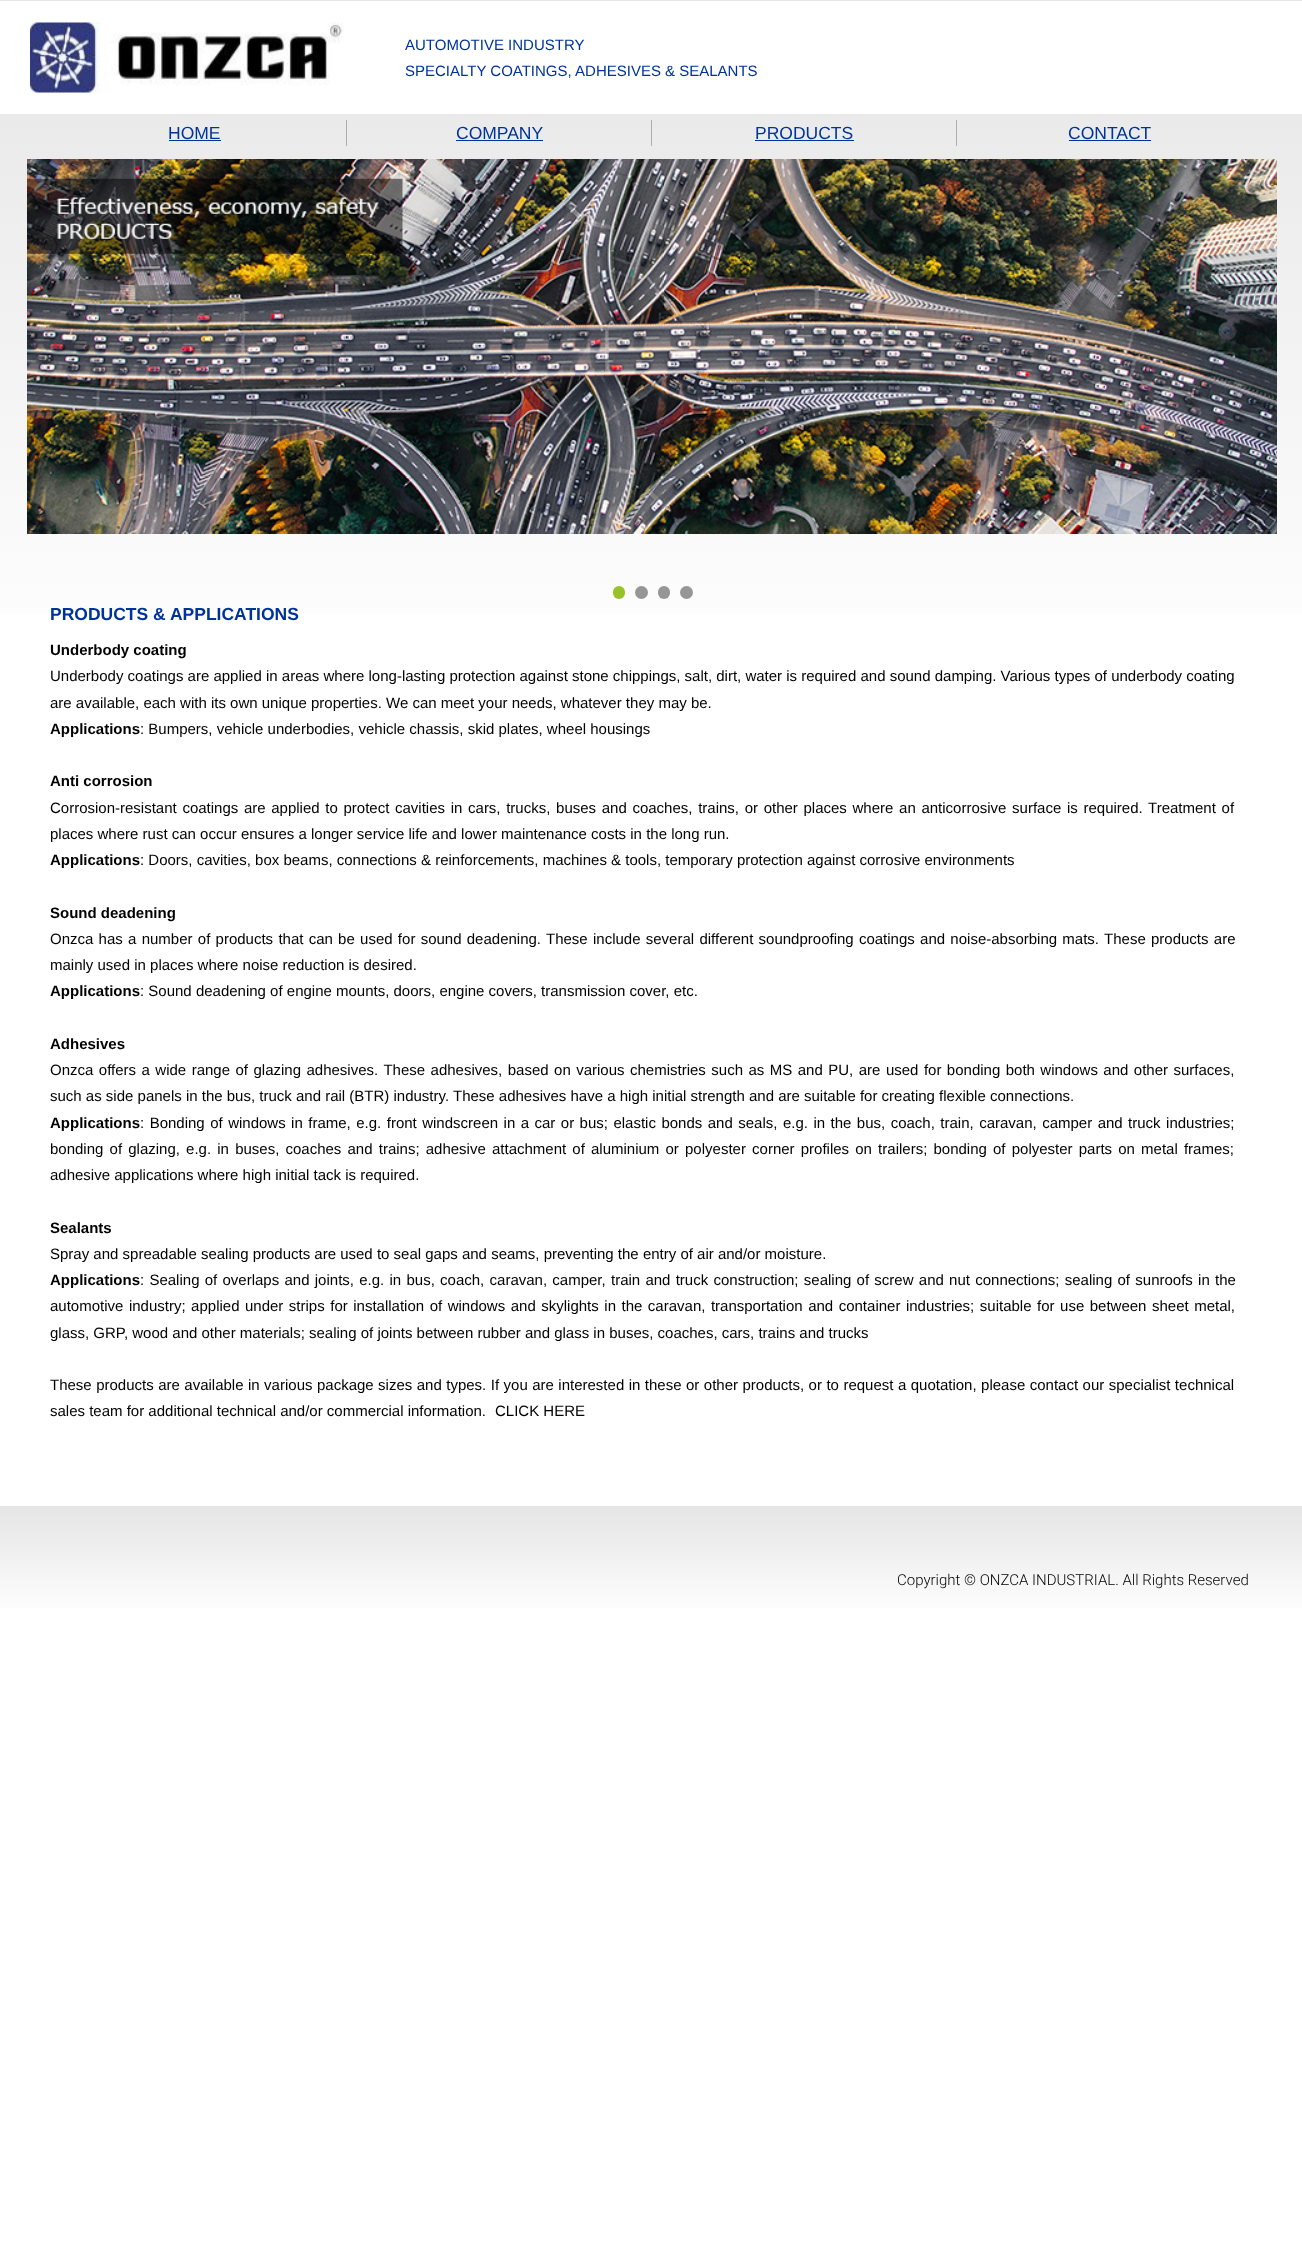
async function draw(canvas) {
  canvas.width = 1302
  canvas.height = 2249
  const ctx = canvas.getContext('2d')
  ctx.miterLimit = 4
  ctx.fontKerning = 'normal'
  async function loadImage(src) {
    const img = new Image()
    img.src = src
    await img.decode()
    return img
  }
  let gradient

  ctx.fillStyle = '#fff'
  ctx.fillRect(0, 0, 1302, 2249)
  gradient = ctx.createLinearGradient(651, -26, 651, 681)
  gradient.addColorStop(0, '#e5e5e5')
  gradient.addColorStop(1, '#fff')
  ctx.fillStyle = gradient
  ctx.fillRect(0, 0, 1302, 613)
  ctx.fillStyle = '#fff'
  ctx.fillRect(0, 1, 1302, 113)
  ctx.drawImage(await loadImage('image0.png'), 30, 22, 314, 71)
  ctx.font = '15px Liberation Sans'
  ctx.fillStyle = '#039'
  ctx.fillText('AUTOMOTIVE INDUSTRY', 405, 50)
  ctx.fillText('SPECIALTY COATINGS, ADHESIVES & SEALANTS', 405, 76)
  ctx.fillStyle = '#aeaeae'
  ctx.fillRect(346, 120, 1, 26)
  ctx.font = '17.5px Liberation Sans'
  ctx.fillStyle = '#039'
  ctx.fillText('HOME', 168, 139)
  ctx.fillRect(169, 140, 52, 1)
  ctx.fillStyle = '#aeaeae'
  ctx.fillRect(651, 120, 1, 26)
  ctx.fillStyle = '#039'
  ctx.fillText('COMPANY', 456, 139)
  ctx.fillRect(456, 140, 87, 1)
  ctx.fillStyle = '#aeaeae'
  ctx.fillRect(956, 120, 1, 26)
  ctx.fillStyle = '#039'
  ctx.fillText('PRODUCTS', 755, 139)
  ctx.fillRect(755, 140, 99, 1)
  ctx.fillText('CONTACT', 1068, 139)
  ctx.fillRect(1069, 140, 82, 1)
  ctx.drawImage(await loadImage('image1.png'), 27, 159, 1250, 375)
  ctx.fillStyle = '#98c22a'
  ctx.beginPath()
  ctx.roundRect(613, 586, 12, 13, 6)
  ctx.fill()
  ctx.fillStyle = '#969696'
  ctx.beginPath()
  ctx.arc(641.5, 592.5, 6.5, 0, 2 * Math.PI)
  ctx.fill()
  ctx.beginPath()
  ctx.roundRect(658, 586, 12, 13, 6)
  ctx.fill()
  ctx.beginPath()
  ctx.arc(686.5, 592.5, 6.5, 0, 2 * Math.PI)
  ctx.fill()
  ctx.font = 'bold 17.5px Liberation Sans'
  ctx.fillStyle = '#039'
  ctx.fillText('PRODUCTS & APPLICATIONS', 50, 620)
  ctx.font = 'bold 15px Liberation Sans'
  ctx.fillStyle = '#000'
  ctx.fillText('Underbody coating', 50, 655)
  ctx.font = '15px Liberation Sans'
  ctx.fillText('Underbody coatings are applied in areas where long-lasting protection against stone chippings, salt, dirt, water is required and sound damping. Various types of underbody coating', 50, 681)
  ctx.fillText('are available, each with its own unique properties. We can meet your needs, whatever they may be.', 50, 708)
  ctx.font = 'bold 15px Liberation Sans'
  ctx.fillText('Applications', 50, 734)
  ctx.font = '15px Liberation Sans'
  ctx.fillText(': Bumpers, vehicle underbodies, vehicle chassis, skid plates, wheel housings', 140, 734)
  ctx.font = 'bold 15px Liberation Sans'
  ctx.fillText('Anti corrosion', 50, 786)
  ctx.wordSpacing = '1.5px'
  ctx.font = '15px Liberation Sans'
  ctx.fillText('Corrosion-resistant coatings are applied to protect cavities in cars, trucks, buses and coaches, trains, or other places where an anticorrosive surface is required. Treatment of', 50, 813)
  ctx.wordSpacing = '0px'
  ctx.fillText('places where rust can occur ensures a longer service life and lower maintenance costs in the long run.', 50, 839)
  ctx.font = 'bold 15px Liberation Sans'
  ctx.fillText('Applications', 50, 865)
  ctx.font = '15px Liberation Sans'
  ctx.fillText(': Doors, cavities, box beams, connections & reinforcements, machines & tools, temporary protection against corrosive environments', 140, 865)
  ctx.font = 'bold 15px Liberation Sans'
  ctx.fillText('Sound deadening', 50, 918)
  ctx.wordSpacing = '1.1px'
  ctx.font = '15px Liberation Sans'
  ctx.fillText('Onzca has a number of products that can be used for sound deadening. These include several different soundproofing coatings and noise-absorbing mats. These products are', 50, 944)
  ctx.wordSpacing = '0px'
  ctx.fillText('mainly used in places where noise reduction is desired.', 50, 970)
  ctx.font = 'bold 15px Liberation Sans'
  ctx.fillText('Applications', 50, 996)
  ctx.font = '15px Liberation Sans'
  ctx.fillText(': Sound deadening of engine mounts, doors, engine covers, transmission cover, etc.', 140, 996)
  ctx.font = 'bold 15px Liberation Sans'
  ctx.fillText('Adhesives', 50, 1049)
  ctx.wordSpacing = '1.3px'
  ctx.font = '15px Liberation Sans'
  ctx.fillText('Onzca offers a wide range of glazing adhesives. These adhesives, based on various chemistries such as MS and PU, are used for bonding both windows and other surfaces,', 50, 1075)
  ctx.wordSpacing = '0px'
  ctx.fillText('such as side panels in the bus, truck and rail (BTR) industry. These adhesives have a high initial strength and are suitable for creating flexible connections.', 50, 1101)
  ctx.font = 'bold 15px Liberation Sans'
  ctx.fillText('Applications', 50, 1128)
  ctx.wordSpacing = '1.3px'
  ctx.font = '15px Liberation Sans'
  ctx.fillText(': Bonding of windows in frame, e.g. front windscreen in a car or bus; elastic bonds and seals, e.g. in the bus, coach, train, caravan, camper and truck industries;', 140, 1128)
  ctx.wordSpacing = '2px'
  ctx.fillText('bonding of glazing, e.g. in buses, coaches and trains; adhesive attachment of aluminium or polyester corner profiles on trailers; bonding of polyester parts on metal frames;', 50, 1154)
  ctx.wordSpacing = '0px'
  ctx.fillText('adhesive applications where high initial tack is required.', 50, 1180)
  ctx.font = 'bold 15px Liberation Sans'
  ctx.fillText('Sealants', 50, 1233)
  ctx.font = '15px Liberation Sans'
  ctx.fillText('Spray and spreadable sealing products are used to seal gaps and seams, preventing the entry of air and/or moisture.', 50, 1259)
  ctx.font = 'bold 15px Liberation Sans'
  ctx.fillText('Applications', 50, 1285)
  ctx.wordSpacing = '1.1px'
  ctx.font = '15px Liberation Sans'
  ctx.fillText(': Sealing of overlaps and joints, e.g. in bus, coach, caravan, camper, train and truck construction; sealing of screw and nut connections; sealing of sunroofs in the', 140, 1285)
  ctx.wordSpacing = '1.35px'
  ctx.fillText('automotive industry; applied under strips for installation of windows and skylights in the caravan, transportation and container industries; suitable for use between sheet metal,', 50, 1311)
  ctx.wordSpacing = '0px'
  ctx.fillText('glass, GRP, wood and other materials; sealing of joints between rubber and glass in buses, coaches, cars, trains and trucks', 50, 1338)
  ctx.wordSpacing = '0.3px'
  ctx.fillText('These products are available in various package sizes and types. If you are interested in these or other products, or to request a quotation, please contact our specialist technical', 50, 1390)
  ctx.wordSpacing = '0px'
  ctx.fillText('sales team for additional technical and/or commercial information.', 50, 1416)
  ctx.fillText('CLICK HERE', 495, 1416)
  gradient = ctx.createLinearGradient(599, 1506, 599, 1619)
  gradient.addColorStop(0, '#e5e5e5')
  gradient.addColorStop(1, '#fff')
  ctx.fillStyle = gradient
  ctx.fillRect(0, 1506, 1302, 102)
  ctx.font = '300 15px Roboto'
  ctx.fillStyle = '#000'
  ctx.fillText('Copyright © ONZCA INDUSTRIAL. All Rights Reserved', 897, 1585)
}

draw(document.querySelector('canvas'))
